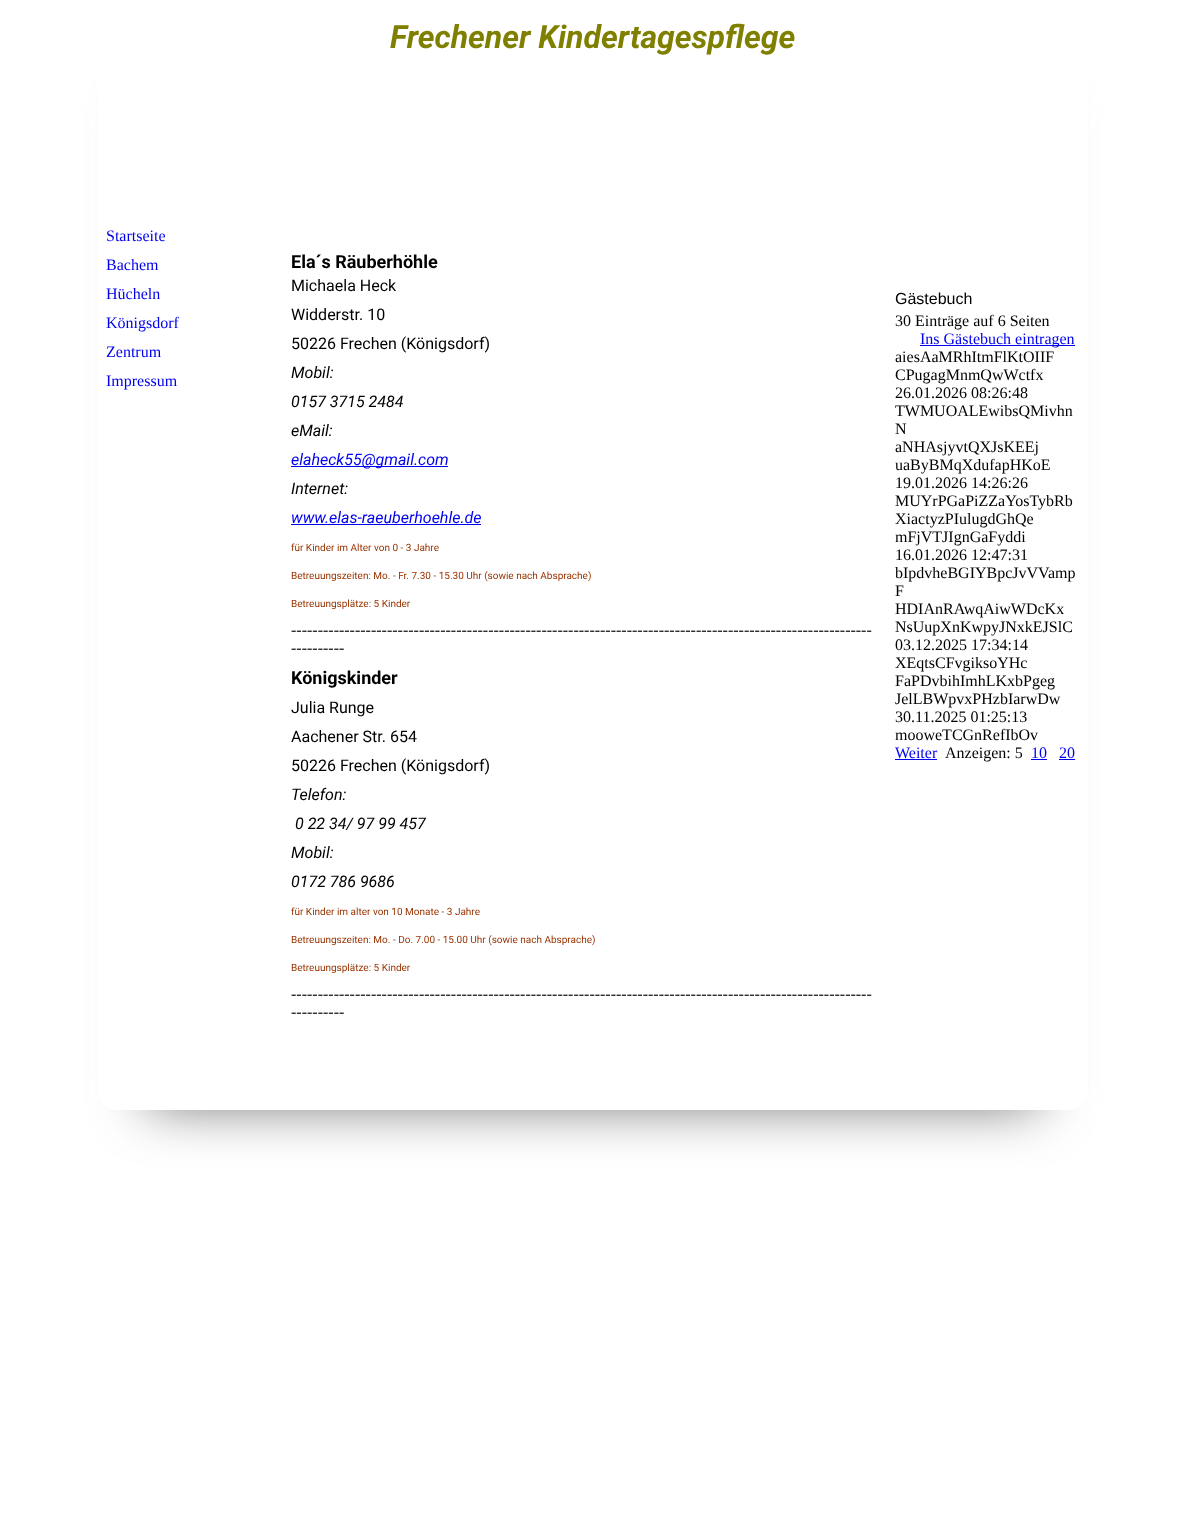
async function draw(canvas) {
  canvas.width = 1185
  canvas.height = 1530
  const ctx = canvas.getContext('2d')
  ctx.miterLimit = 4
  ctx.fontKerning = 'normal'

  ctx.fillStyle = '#fff'
  ctx.fillRect(0, 0, 1185, 1530)
  ctx.save()
  ctx.beginPath()
  ctx.moveTo(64, 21)
  ctx.lineTo(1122, 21)
  ctx.lineTo(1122, 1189)
  ctx.lineTo(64, 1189)
  ctx.closePath()
  ctx.moveTo(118, 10)
  ctx.lineTo(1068, 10)
  ctx.bezierCurveTo(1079, 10, 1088, 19, 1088, 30)
  ctx.lineTo(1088, 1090)
  ctx.bezierCurveTo(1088, 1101, 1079, 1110, 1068, 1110)
  ctx.lineTo(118, 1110)
  ctx.bezierCurveTo(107, 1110, 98, 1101, 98, 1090)
  ctx.lineTo(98, 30)
  ctx.bezierCurveTo(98, 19, 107, 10, 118, 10)
  ctx.closePath()
  ctx.clip('evenodd')
  ctx.fillStyle = '#3c3c3cbf'
  ctx.filter = 'blur(27.5px)'
  ctx.beginPath()
  ctx.rect(148, 105, 890, 1000)
  ctx.fill()
  ctx.filter = 'none'
  ctx.restore()
  ctx.font = 'italic bold 32px Roboto'
  ctx.fillStyle = '#808000'
  ctx.fillText('Frechener Kindertagespflege', 390, 48)
  ctx.font = '16px Liberation Serif'
  ctx.fillStyle = '#00e'
  ctx.fillText('Startseite', 106, 241)
  ctx.fillText('Bachem', 106, 270)
  ctx.fillText('Hücheln', 106, 299)
  ctx.fillText('Königsdorf', 106, 328)
  ctx.fillText('Zentrum', 106, 357)
  ctx.fillText('Impressum', 106, 386)
  ctx.font = 'bold 18px Roboto'
  ctx.fillStyle = '#000'
  ctx.fillText('Ela´s Räuberhöhle', 291, 268)
  ctx.font = '16px Roboto'
  ctx.fillText('Michaela Heck', 291, 291)
  ctx.fillText('Widderstr. 10', 291, 320)
  ctx.fillText('50226 Frechen (Königsdorf)', 291, 349)
  ctx.font = 'italic 16px Roboto'
  ctx.fillText('Mobil:', 291, 378)
  ctx.fillText('0157 3715 2484', 291, 407)
  ctx.fillText('eMail:', 291, 436)
  ctx.fillStyle = '#00e'
  ctx.fillRect(291, 466, 157, 1)
  ctx.fillText('elaheck55@gmail.com', 291, 465)
  ctx.fillStyle = '#000'
  ctx.fillText('Internet:', 291, 494)
  ctx.fillStyle = '#00e'
  ctx.fillText('www.elas-raeuberhoehle.de', 291, 523)
  ctx.fillRect(291, 524, 190, 1)
  ctx.font = '10px Roboto'
  ctx.fillStyle = '#930'
  ctx.fillText('für Kinder im Alter von 0 - 3 Jahre', 291, 551)
  ctx.fillText('Betreuungszeiten: Mo. - Fr. 7.30 - 15.30 Uhr (sowie nach Absprache)', 291, 579)
  ctx.fillText('Betreuungsplätze: 5 Kinder', 291, 607)
  ctx.font = '16px Liberation Serif'
  ctx.fillStyle = '#000'
  ctx.fillText('-------------------------------------------------------------------------------------------------------------', 291, 635)
  ctx.fillText('----------', 291, 653)
  ctx.font = 'bold 18px Roboto'
  ctx.fillText('Königskinder', 291, 684)
  ctx.font = '16px Roboto'
  ctx.fillText('Julia Runge', 291, 713)
  ctx.fillText('Aachener Str. 654', 291, 742)
  ctx.fillText('50226 Frechen (Königsdorf)', 291, 771)
  ctx.font = 'italic 16px Roboto'
  ctx.fillText('Telefon:', 291, 800)
  ctx.fillText('0 22 34/ 97 99 457', 295, 829)
  ctx.fillText('Mobil:', 291, 858)
  ctx.fillText('0172 786 9686', 291, 887)
  ctx.font = '10px Roboto'
  ctx.fillStyle = '#930'
  ctx.fillText('für Kinder im alter von 10 Monate - 3 Jahre', 291, 915)
  ctx.fillText('Betreuungszeiten: Mo. - Do. 7.00 - 15.00 Uhr (sowie nach Absprache)', 291, 943)
  ctx.fillText('Betreuungsplätze: 5 Kinder', 291, 971)
  ctx.font = '16px Liberation Serif'
  ctx.fillStyle = '#000'
  ctx.fillText('-------------------------------------------------------------------------------------------------------------', 291, 999)
  ctx.fillText('----------', 291, 1017)
  ctx.font = '16px Liberation Sans'
  ctx.fillText('Gästebuch', 895, 304)
  ctx.font = '16px Liberation Serif'
  ctx.fillText('30 Einträge auf 6 Seiten', 895, 326)
  ctx.fillStyle = '#00e'
  ctx.fillRect(920, 345, 155, 1)
  ctx.fillText('Ins Gästebuch eintragen', 920, 344)
  ctx.fillStyle = '#000'
  ctx.fillText('aiesAaMRhItmFlKtOIIF', 895, 362)
  ctx.fillText('CPugagMnmQwWctfx', 895, 380)
  ctx.fillText('26.01.2026 08:26:48', 895, 398)
  ctx.save()
  ctx.beginPath()
  ctx.rect(895, 279, 180, 483)
  ctx.clip()
  ctx.fillText('TWMUOALEwibsQMivhn', 895, 416)
  ctx.restore()
  ctx.fillText('N', 895, 434)
  ctx.fillText('aNHAsjyvtQXJsKEEj', 895, 452)
  ctx.fillText('uaByBMqXdufapHKoE', 895, 470)
  ctx.fillText('19.01.2026 14:26:26', 895, 488)
  ctx.fillText('MUYrPGaPiZZaYosTybRb', 895, 506)
  ctx.fillText('XiactyzPIulugdGhQe', 895, 524)
  ctx.fillText('mFjVTJIgnGaFyddi', 895, 542)
  ctx.fillText('16.01.2026 12:47:31', 895, 560)
  ctx.fillText('bIpdvheBGIYBpcJvVVamp', 895, 578)
  ctx.fillText('F', 895, 596)
  ctx.fillText('HDIAnRAwqAiwWDcKx', 895, 614)
  ctx.fillText('NsUupXnKwpyJNxkEJSlC', 895, 632)
  ctx.fillText('03.12.2025 17:34:14', 895, 650)
  ctx.fillText('XEqtsCFvgiksoYHc', 895, 668)
  ctx.fillText('FaPDvbihImhLKxbPgeg', 895, 686)
  ctx.fillText('JelLBWpvxPHzbIarwDw', 895, 704)
  ctx.fillText('30.11.2025 01:25:13', 895, 722)
  ctx.fillText('mooweTCGnRefIbOv', 895, 740)
  ctx.fillStyle = '#00e'
  ctx.fillText('Weiter', 895, 758)
  ctx.fillRect(895, 759, 42, 1)
  ctx.fillStyle = '#000'
  ctx.fillText('Anzeigen: 5', 945, 758)
  ctx.fillStyle = '#00e'
  ctx.fillText('10', 1031, 758)
  ctx.fillRect(1031, 759, 16, 1)
  ctx.fillText('20', 1059, 758)
  ctx.fillRect(1059, 759, 16, 1)
}

draw(document.querySelector('canvas'))
